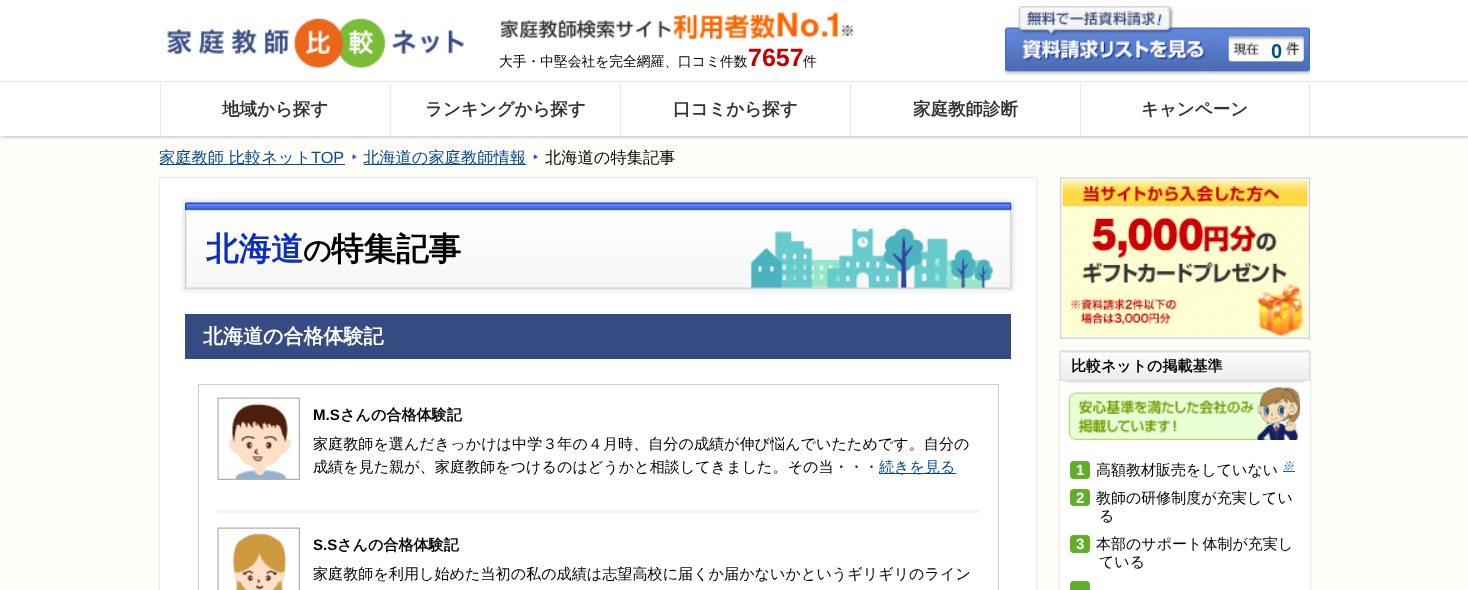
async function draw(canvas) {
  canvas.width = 1468
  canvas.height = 590
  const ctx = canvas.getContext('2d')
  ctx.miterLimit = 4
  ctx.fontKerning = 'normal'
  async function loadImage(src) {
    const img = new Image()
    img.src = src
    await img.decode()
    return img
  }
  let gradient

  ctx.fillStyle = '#fffdf7'
  ctx.fillRect(0, 0, 1468, 590)
  ctx.fillStyle = '#999'
  ctx.filter = 'blur(2px)'
  ctx.beginPath()
  ctx.rect(1, 0, 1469, 136)
  ctx.fill()
  ctx.filter = 'none'
  ctx.fillStyle = '#fff'
  ctx.fillRect(0, 0, 1468, 136)
  ctx.drawImage(await loadImage('image0.png'), 167, 18, 297, 50)
  ctx.drawImage(await loadImage('image1.png'), 500, 12, 354, 27)
  ctx.font = '500 13.75px WenQuanYi Zen Hei'
  ctx.fillStyle = '#000'
  ctx.fillText('大手・中堅会社を完全網羅、口コミ件数', 499, 66)
  ctx.font = 'bold 25px Liberation Sans'
  ctx.fillStyle = '#c10000'
  ctx.fillText('7657', 748, 66)
  ctx.font = '500 13.75px WenQuanYi Zen Hei'
  ctx.fillStyle = '#000'
  ctx.fillText('件', 803, 66)
  ctx.drawImage(await loadImage('image2.png'), 1005, 6, 305, 69)
  ctx.font = 'bold 20px Liberation Sans'
  ctx.fillStyle = '#004b91'
  ctx.fillText('0', 1271, 58)
  ctx.fillStyle = '#eaeaea'
  ctx.fillRect(0, 81, 1468, 1)
  ctx.fillRect(160, 83, 1, 53)
  ctx.font = 'bold 17.5px WenQuanYi Zen Hei'
  ctx.fillStyle = '#333'
  ctx.fillText('地域から探す', 222, 115)
  ctx.fillStyle = '#eaeaea'
  ctx.fillRect(390, 83, 1, 53)
  ctx.fillStyle = '#333'
  ctx.fillText('ランキングから探す', 425, 115)
  ctx.fillStyle = '#eaeaea'
  ctx.fillRect(620, 83, 1, 53)
  ctx.fillStyle = '#333'
  ctx.fillText('口コミから探す', 673, 115)
  ctx.fillStyle = '#eaeaea'
  ctx.fillRect(850, 83, 1, 53)
  ctx.fillStyle = '#333'
  ctx.fillText('家庭教師診断', 913, 115)
  ctx.fillStyle = '#eaeaea'
  ctx.fillRect(1309, 83, 1, 53)
  ctx.fillRect(1080, 83, 1, 53)
  ctx.fillStyle = '#333'
  ctx.fillText('キャンペーン', 1141, 115)
  ctx.fillStyle = '#004b91'
  ctx.fillRect(160, 164, 185, 1)
  ctx.font = '500 16.25px WenQuanYi Zen Hei'
  ctx.fillText('家庭教師 比較ネット', 159, 163)
  ctx.font = '16.25px Liberation Sans'
  ctx.fillText('TOP', 311, 163)
  ctx.drawImage(await loadImage('image3.png'), 352, 153, 6, 7)
  ctx.fillRect(364, 164, 162, 1)
  ctx.font = '500 16.25px WenQuanYi Zen Hei'
  ctx.fillText('北海道の家庭教師情報', 363, 163)
  ctx.drawImage(await loadImage('image4.png'), 533, 153, 6, 7)
  ctx.fillStyle = '#000'
  ctx.fillText('北海道の特集記事', 545, 163)
  ctx.fillStyle = '#ccc'
  ctx.filter = 'blur(1px)'
  ctx.beginPath()
  ctx.rect(160, 178, 876, 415)
  ctx.fill()
  ctx.filter = 'none'
  ctx.fillStyle = '#fff'
  ctx.fillRect(160, 178, 876, 412)
  ctx.fillStyle = '#d9d9d9a6'
  ctx.filter = 'blur(2px)'
  ctx.beginPath()
  ctx.rect(183, 200, 831, 91)
  ctx.fill()
  ctx.filter = 'none'
  ctx.drawImage(await loadImage('image5.png'), 185, 202, 827, 87)
  ctx.font = 'bold 32.5px WenQuanYi Zen Hei'
  ctx.fillStyle = '#0b30be'
  ctx.fillText('北海道', 206, 260)
  ctx.font = 'bold 28px WenQuanYi Zen Hei'
  ctx.fillStyle = '#000'
  ctx.fillText('の', 303, 260)
  ctx.font = 'bold 32.5px WenQuanYi Zen Hei'
  ctx.fillText('特集記事', 331, 260)
  ctx.fillStyle = '#354b82'
  ctx.fillRect(185, 314, 826, 45)
  ctx.font = 'bold 20px WenQuanYi Zen Hei'
  ctx.fillStyle = '#fff'
  ctx.fillText('北海道の合格体験記', 203, 343)
  ctx.strokeStyle = '#ccc'
  ctx.strokeRect(198.5, 384.5, 800, 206)
  ctx.fillStyle = '#f5f4f4'
  ctx.fillRect(217, 510, 762, 3)
  ctx.drawImage(await loadImage('image6.png'), 217, 397, 83, 83)
  ctx.font = 'bold 15.1px Liberation Sans'
  ctx.fillStyle = '#000'
  ctx.fillText('M.S', 313, 420)
  ctx.font = 'bold 15.1px WenQuanYi Zen Hei'
  ctx.fillText('さんの合格体験記', 340, 420)
  ctx.font = '500 15.1px WenQuanYi Zen Hei'
  ctx.fillText('家庭教師を選んだきっかけは中学３年の４月時、自分の成績が伸び悩んでいたためです。自分の', 313, 449)
  ctx.fillText('成績を見た親が、家庭教師をつけるのはどうかと相談してきました。その当・・・', 313, 472)
  ctx.fillStyle = '#004b91'
  ctx.fillRect(879, 473, 77, 1)
  ctx.fillText('続きを見る', 879, 472)
  ctx.drawImage(await loadImage('image7.png'), 217, 527, 83, 63)
  ctx.font = 'bold 15.1px Liberation Sans'
  ctx.fillStyle = '#000'
  ctx.fillText('S.S', 313, 550)
  ctx.font = 'bold 15.1px WenQuanYi Zen Hei'
  ctx.fillText('さんの合格体験記', 337, 550)
  ctx.font = '500 15.1px WenQuanYi Zen Hei'
  ctx.fillText('家庭教師を利用し始めた当初の私の成績は志望高校に届くか届かないかというギリギリのライン', 313, 579)
  ctx.drawImage(await loadImage('image8.png'), 1060, 177, 250, 162)
  ctx.fillStyle = '#ccc'
  ctx.filter = 'blur(1px)'
  ctx.beginPath()
  ctx.rect(1060, 351, 250, 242)
  ctx.fill()
  ctx.filter = 'none'
  ctx.fillStyle = '#fff'
  ctx.fillRect(1060, 381, 250, 209)
  ctx.fillStyle = '#00000080'
  ctx.filter = 'blur(2px)'
  ctx.beginPath()
  ctx.rect(1066, 363, 238, 17)
  ctx.fill()
  ctx.filter = 'none'
  gradient = ctx.createLinearGradient(1185, 325, 1185, 353)
  gradient.addColorStop(0, '#fbfdff')
  gradient.addColorStop(1, '#ececec')
  ctx.fillStyle = gradient
  ctx.fillRect(1060, 352, 250, 1)
  gradient = ctx.createLinearGradient(1185, 353, 1185, 380)
  gradient.addColorStop(0, '#fbfdff')
  gradient.addColorStop(1, '#ececec')
  ctx.fillStyle = gradient
  ctx.fillRect(1061, 353, 248, 27)
  ctx.strokeStyle = '#ddd'
  ctx.strokeRect(1060.5, 351.5, 249, 29)
  ctx.font = 'bold 15px WenQuanYi Zen Hei'
  ctx.fillStyle = '#000'
  ctx.fillText('比較ネットの掲載基準', 1071, 371)
  ctx.drawImage(await loadImage('image9.png'), 1068, 387, 232, 53)
  ctx.fillStyle = '#60af26'
  ctx.beginPath()
  ctx.roundRect(1070, 461, 20, 18, 4)
  ctx.fill()
  ctx.font = 'bold 15px Liberation Sans'
  ctx.fillStyle = '#fff'
  ctx.fillText('1', 1076, 475)
  ctx.font = '500 15px WenQuanYi Zen Hei'
  ctx.fillStyle = '#000'
  ctx.fillText('高額教材販売をしていない', 1096, 475)
  ctx.font = 'italic 500 12px WenQuanYi Zen Hei'
  ctx.fillStyle = '#06c'
  ctx.fillText('※', 1282, 470)
  ctx.fillRect(1283, 471, 12, 1)
  ctx.fillStyle = '#60af26'
  ctx.beginPath()
  ctx.roundRect(1070, 489, 20, 17, 4)
  ctx.fill()
  ctx.font = 'bold 15px Liberation Sans'
  ctx.fillStyle = '#fff'
  ctx.fillText('2', 1076, 503)
  ctx.font = '500 15px WenQuanYi Zen Hei'
  ctx.fillStyle = '#000'
  ctx.fillText('教師の研修制度が充実してい', 1096, 503)
  ctx.fillText('る', 1099, 521)
  ctx.fillStyle = '#60af26'
  ctx.beginPath()
  ctx.roundRect(1070, 535, 20, 18, 4)
  ctx.fill()
  ctx.font = 'bold 15px Liberation Sans'
  ctx.fillStyle = '#fff'
  ctx.fillText('3', 1076, 549)
  ctx.font = '500 15px WenQuanYi Zen Hei'
  ctx.fillStyle = '#000'
  ctx.fillText('本部のサポート体制が充実し', 1096, 549)
  ctx.fillText('ている', 1099, 567)
  ctx.fillStyle = '#60af26'
  ctx.beginPath()
  ctx.roundRect(1070, 581, 20, 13, 4)
  ctx.fill()
}

draw(document.querySelector('canvas'))
